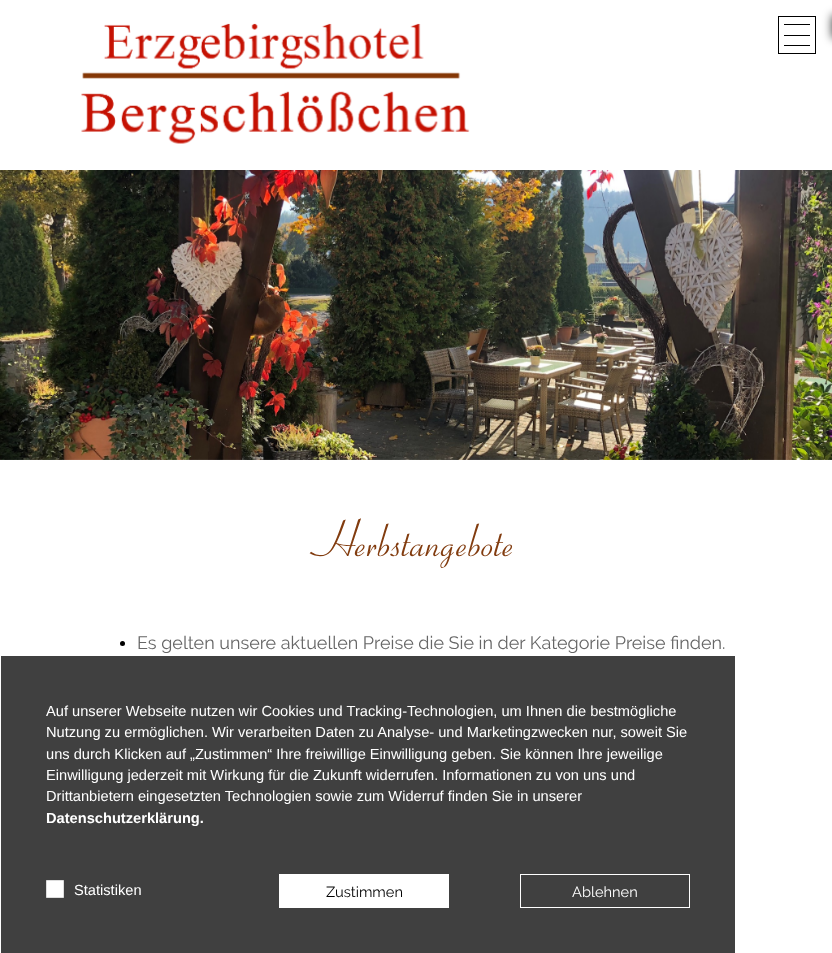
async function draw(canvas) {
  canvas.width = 832
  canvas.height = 953
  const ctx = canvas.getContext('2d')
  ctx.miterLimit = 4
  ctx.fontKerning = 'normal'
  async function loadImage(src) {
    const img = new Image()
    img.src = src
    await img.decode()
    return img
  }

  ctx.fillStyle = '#fff'
  ctx.fillRect(0, 0, 832, 953)
  ctx.drawImage(await loadImage('image0.png'), 81, 23, 389, 121)
  ctx.strokeStyle = '#000'
  ctx.strokeRect(778.5, 16.5, 37, 37)
  ctx.fillStyle = '#000'
  ctx.fillRect(784, 35, 26, 1)
  ctx.fillRect(784, 24, 26, 1)
  ctx.fillRect(784, 45, 26, 1)
  ctx.fillStyle = '#000000bf'
  ctx.filter = 'blur(5px)'
  ctx.beginPath()
  ctx.rect(832, 15, 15, 23)
  ctx.fill()
  ctx.filter = 'none'
  ctx.drawImage(await loadImage('image1.png'), 0, 170, 832, 290)
  ctx.font = '52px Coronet'
  ctx.fillStyle = '#823c0f'
  ctx.fillText('Herbstangebote', 318, 556)
  ctx.fillStyle = '#000'
  ctx.beginPath()
  ctx.arc(122.5, 643.5, 2.5, 0, 2 * Math.PI)
  ctx.fill()
  ctx.font = '18px Raleway'
  ctx.fillStyle = '#666'
  ctx.fillText('Es gelten unsere aktuellen Preise die Sie in der Kategorie Preise finden.', 137, 649)
  ctx.fillStyle = '#404040'
  ctx.fillRect(1, 656, 734, 297)
  ctx.font = '14.65px Liberation Sans'
  ctx.fillStyle = '#fff'
  ctx.fillText('Auf unserer Webseite nutzen wir Cookies und Tracking-Technologien, um Ihnen die bestmögliche', 46, 716)
  ctx.fillText('Nutzung zu ermöglichen. Wir verarbeiten Daten zu Analyse- und Marketingzwecken nur, soweit Sie', 46, 737)
  ctx.fillText('uns durch Klicken auf „Zustimmen“ Ihre freiwillige Einwilligung geben. Sie können Ihre jeweilige', 46, 759)
  ctx.fillText('Einwilligung jederzeit mit Wirkung für die Zukunft widerrufen. Informationen zu von uns und', 46, 780)
  ctx.fillText('Drittanbietern eingesetzten Technologien sowie zum Widerruf finden Sie in unserer', 46, 801)
  ctx.font = 'bold 14.65px Liberation Sans'
  ctx.fillText('Datenschutzerklärung.', 46, 823)
  ctx.beginPath()
  ctx.rect(46.5, 880.5, 17, 17)
  ctx.fill()
  ctx.strokeStyle = '#ddd'
  ctx.stroke()
  ctx.font = '14.65px Liberation Sans'
  ctx.fillText('Statistiken', 74, 895)
  ctx.fillRect(279, 874, 170, 34)
  ctx.font = '14.65px Raleway'
  ctx.fillStyle = '#000'
  ctx.fillText('Zustimmen', 326, 897)
  ctx.strokeStyle = '#fff'
  ctx.strokeRect(520.5, 874.5, 169, 33)
  ctx.fillStyle = '#fff'
  ctx.fillText('Ablehnen', 572, 897)
}

draw(document.querySelector('canvas'))
